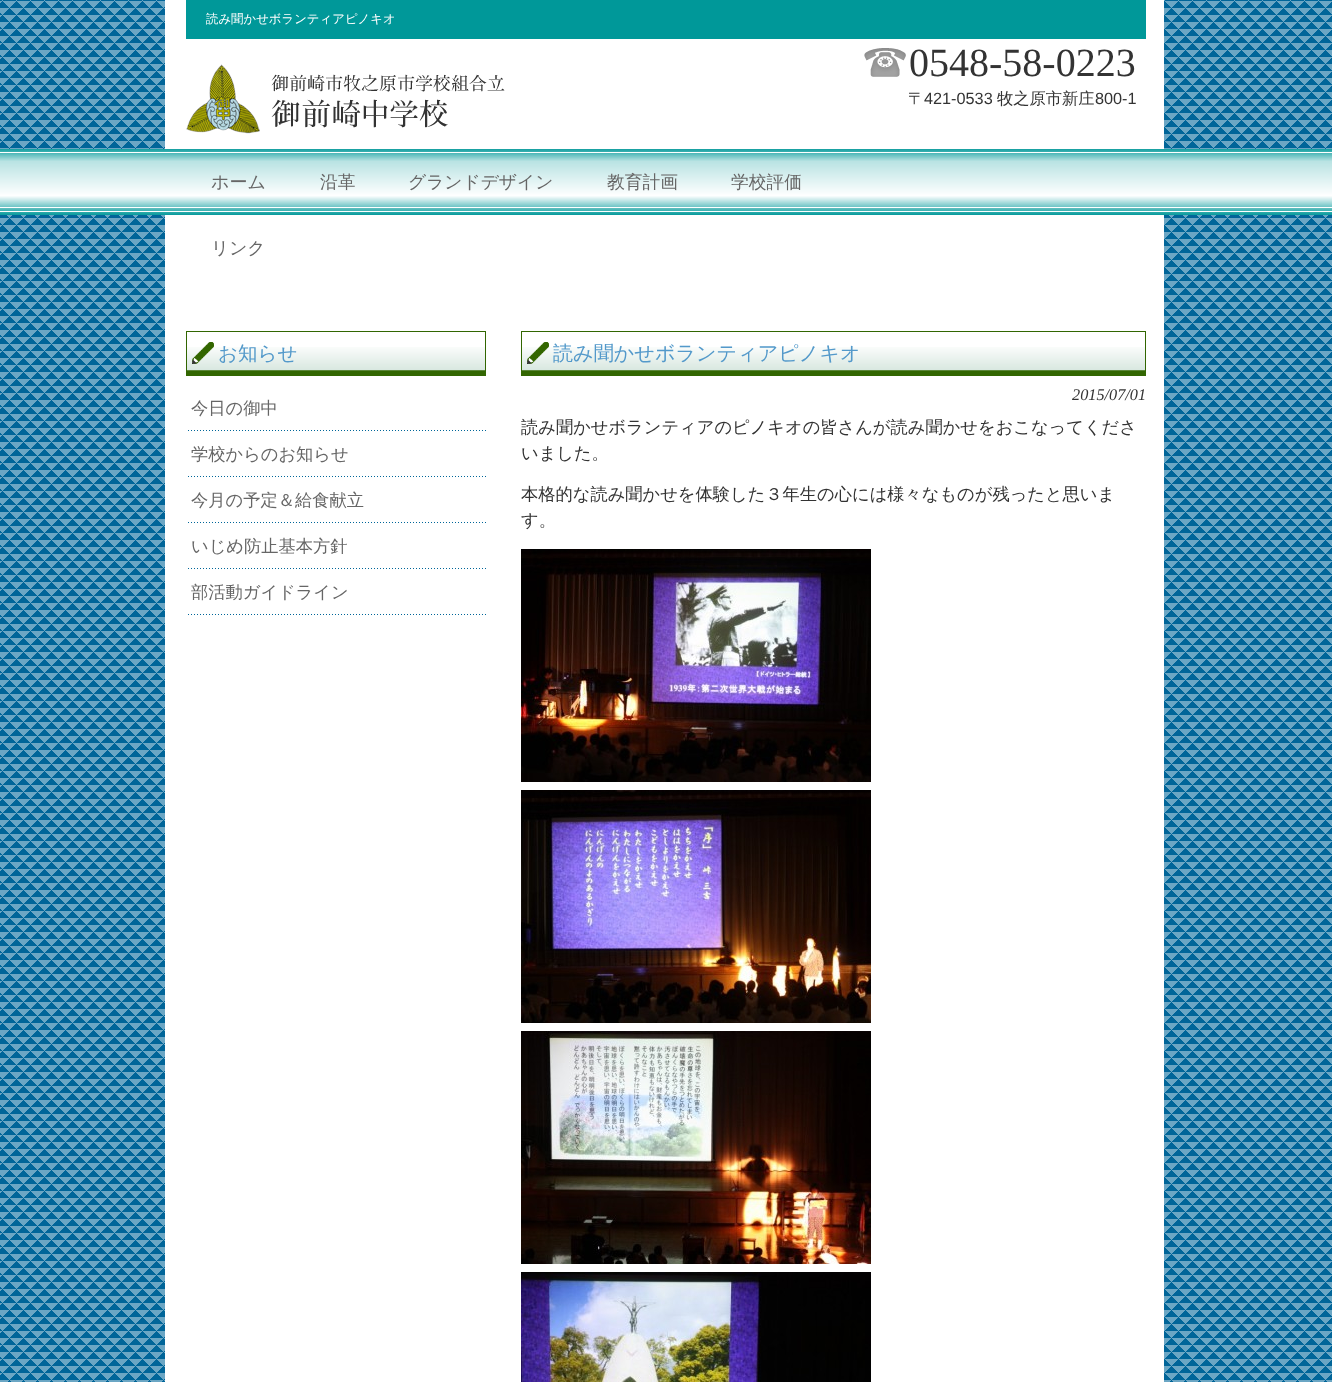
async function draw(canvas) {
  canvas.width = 1332
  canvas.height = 1382
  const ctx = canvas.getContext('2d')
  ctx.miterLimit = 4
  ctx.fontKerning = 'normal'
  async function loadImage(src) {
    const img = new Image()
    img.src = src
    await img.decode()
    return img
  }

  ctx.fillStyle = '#fff'
  ctx.fillRect(0, 0, 1332, 1382)
  ctx.drawImage(await loadImage('image0.png'), 0, 0, 1332, 1382)
  ctx.fillStyle = '#009899'
  ctx.fillRect(186, 0, 960, 39)
  ctx.font = '500 12.4px WenQuanYi Zen Hei'
  ctx.fillStyle = '#fff'
  ctx.fillText('読み聞かせボランティアピノキオ', 206, 23)
  ctx.drawImage(await loadImage('image1.png'), 186, 64, 319, 70)
  ctx.drawImage(await loadImage('image2.png'), 864, 48, 42, 29)
  ctx.font = '40px Liberation Serif'
  ctx.fillStyle = '#333'
  ctx.fillText('0548-58-0223', 909, 76)
  ctx.font = '500 16.25px WenQuanYi Zen Hei'
  ctx.fillText('〒', 908, 104)
  ctx.font = '16.25px Liberation Sans'
  ctx.fillText('421-0533', 924, 104)
  ctx.font = '500 16.25px WenQuanYi Zen Hei'
  ctx.fillText('牧之原市新庄', 997, 104)
  ctx.font = '16.25px Liberation Sans'
  ctx.fillText('800-1', 1095, 104)
  ctx.drawImage(await loadImage('image3.png'), 0, 149, 1332, 66)
  ctx.font = '500 17.75px WenQuanYi Zen Hei'
  ctx.fillStyle = '#666'
  ctx.fillText('沿革', 320, 188)
  ctx.fillText('グランドデザイン', 408, 188)
  ctx.fillText('教育計画', 607, 188)
  ctx.fillText('学校評価', 731, 188)
  ctx.fillText('リンク', 211, 254)
  ctx.font = '500 18px WenQuanYi Zen Hei'
  ctx.fillText('ホーム', 211, 188)
  ctx.drawImage(await loadImage('image4.png'), 187, 347, 298, 28)
  ctx.strokeStyle = '#326601'
  ctx.strokeRect(186.5, 331.5, 299, 44)
  ctx.drawImage(await loadImage('image5.png'), 192, 342, 22, 22)
  ctx.font = '500 19.5px WenQuanYi Zen Hei'
  ctx.fillStyle = '#5399ca'
  ctx.fillText('お知らせ', 218, 360)
  ctx.drawImage(await loadImage('image6.png'), 188, 430, 298, 1)
  ctx.font = '500 17.25px WenQuanYi Zen Hei'
  ctx.fillStyle = '#666'
  ctx.fillText('今日の御中', 191, 414)
  ctx.drawImage(await loadImage('image6.png'), 188, 476, 298, 1)
  ctx.fillText('学校からのお知らせ', 191, 460)
  ctx.drawImage(await loadImage('image6.png'), 188, 522, 298, 1)
  ctx.fillText('今月の予定＆給食献立', 191, 506)
  ctx.drawImage(await loadImage('image6.png'), 188, 568, 298, 1)
  ctx.fillText('いじめ防止基本方針', 191, 552)
  ctx.drawImage(await loadImage('image6.png'), 188, 614, 298, 1)
  ctx.fillText('部活動ガイドライン', 191, 598)
  ctx.drawImage(await loadImage('image7.png'), 522, 347, 623, 28)
  ctx.strokeRect(521.5, 331.5, 624, 44)
  ctx.drawImage(await loadImage('image5.png'), 527, 342, 22, 22)
  ctx.font = '500 20.1px WenQuanYi Zen Hei'
  ctx.fillStyle = '#5399ca'
  ctx.fillText('読み聞かせボランティアピノキオ', 553, 360)
  ctx.font = 'italic 16.25px Liberation Serif'
  ctx.fillStyle = '#333'
  ctx.fillText('2015/07/01', 1072, 400)
  ctx.font = '500 17.25px WenQuanYi Zen Hei'
  ctx.fillText('読み聞かせボランティアのピノキオの皆さんが読み聞かせをおこなってくださ', 521, 433)
  ctx.fillText('いました。', 521, 459)
  ctx.fillText('本格的な読み聞かせを体験した３年生の心には様々なものが残ったと思いま', 521, 500)
  ctx.fillText('す。', 521, 526)
  ctx.drawImage(await loadImage('image8.png'), 521, 549, 350, 233)
  ctx.drawImage(await loadImage('image9.png'), 521, 790, 350, 233)
  ctx.drawImage(await loadImage('image10.png'), 521, 1031, 350, 233)
  ctx.drawImage(await loadImage('image11.png'), 521, 1272, 350, 110)
}

draw(document.querySelector('canvas'))
